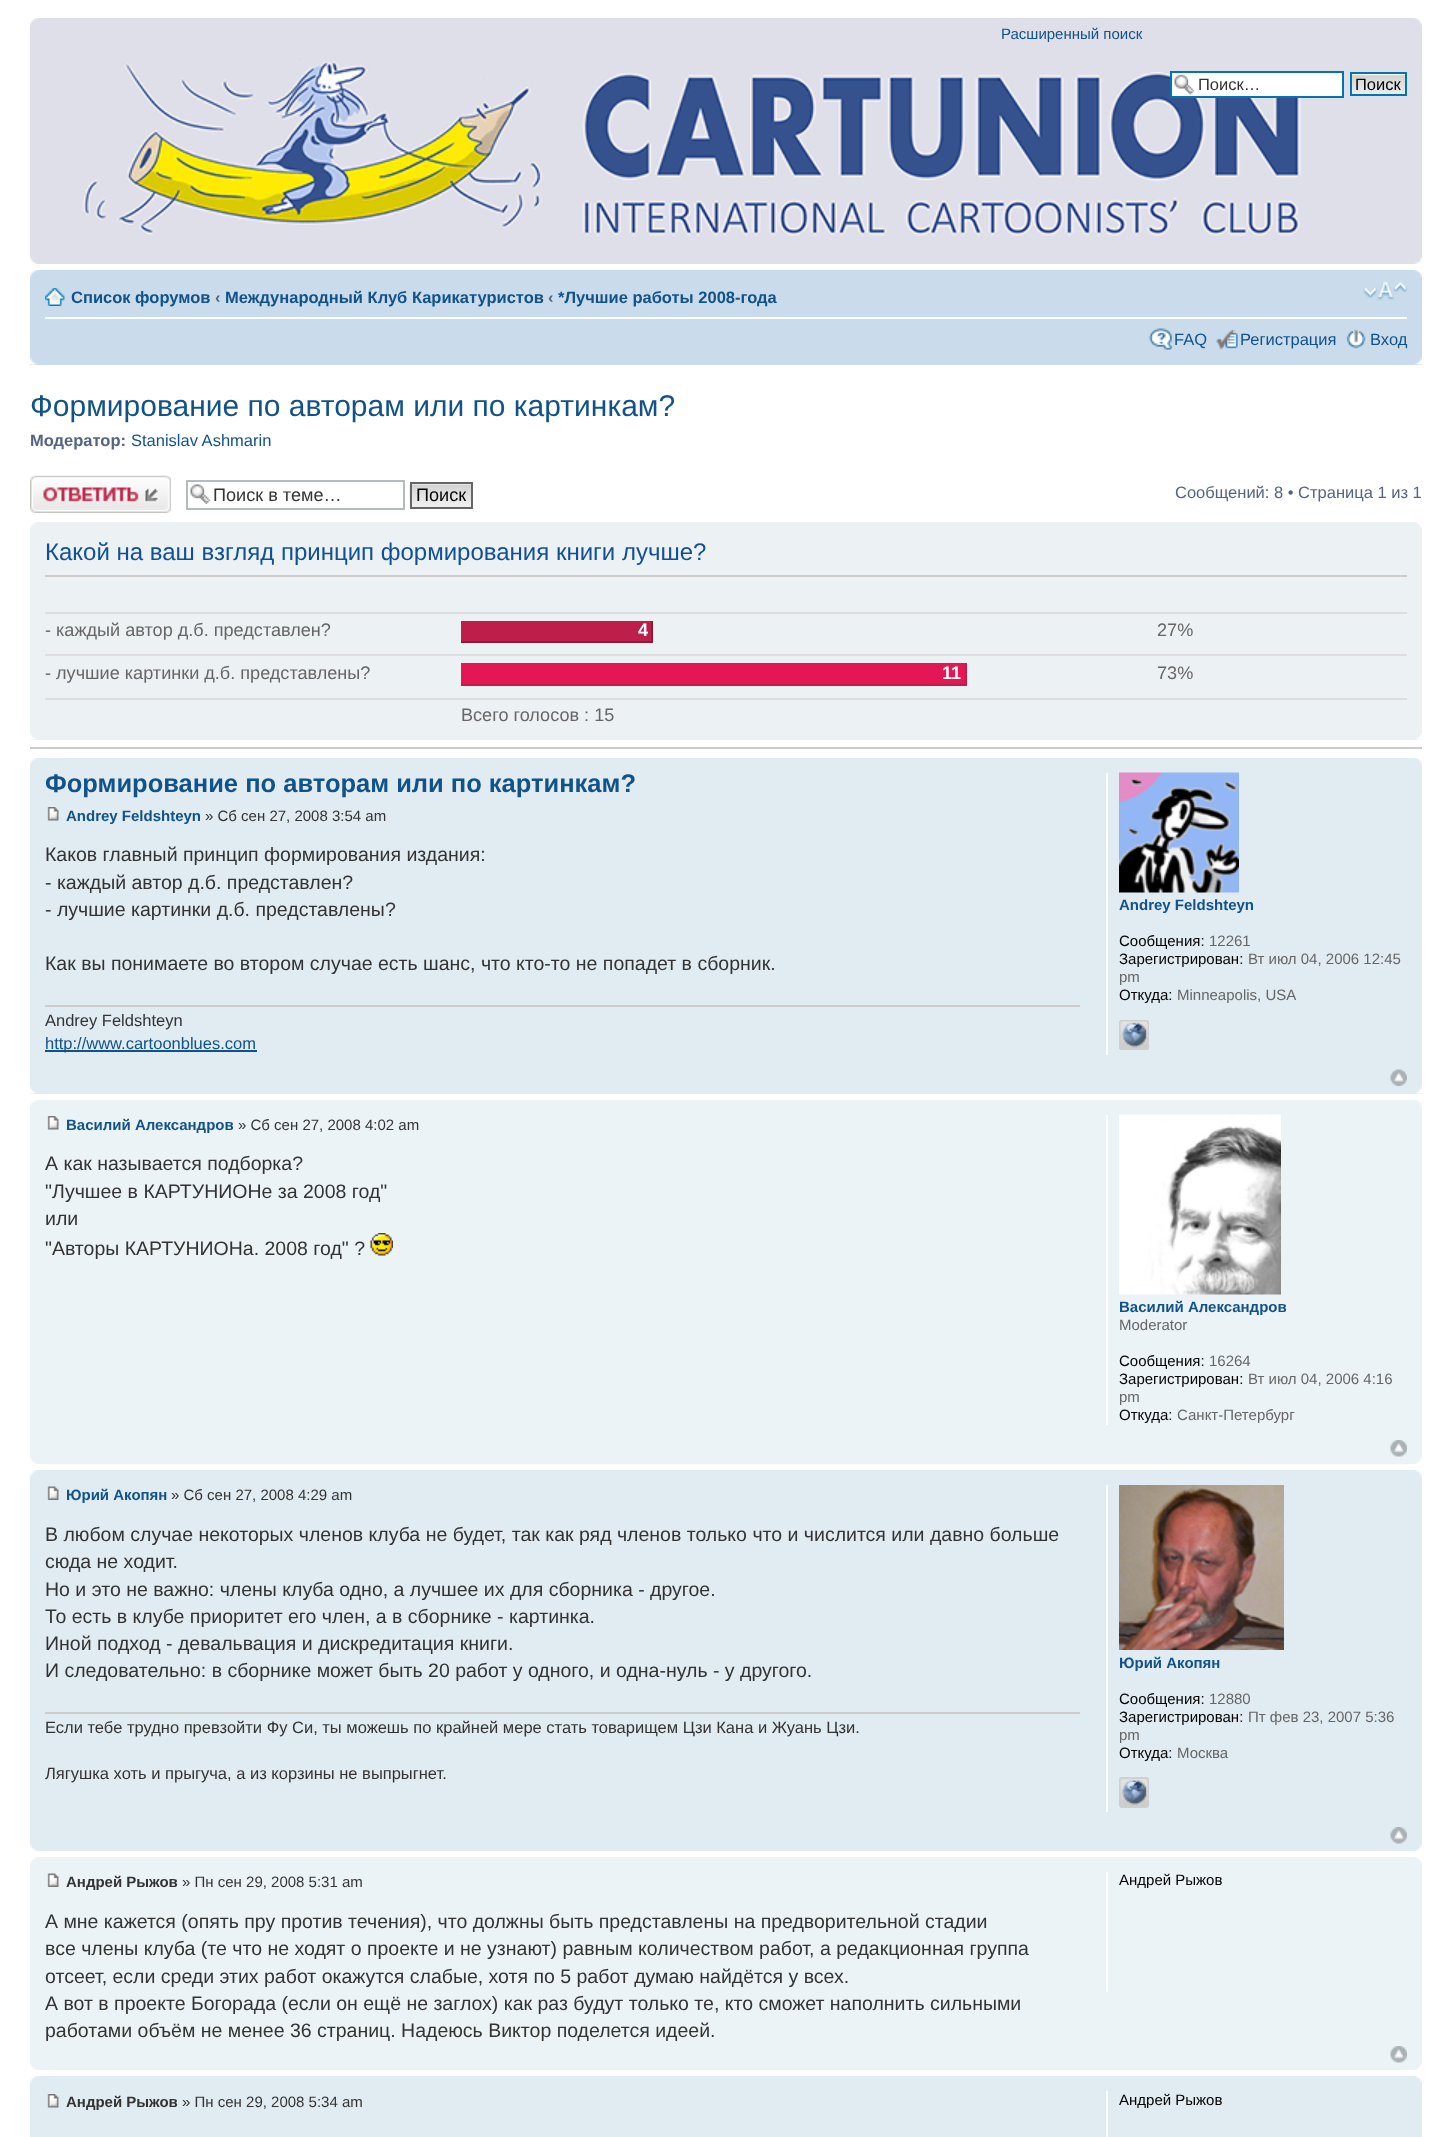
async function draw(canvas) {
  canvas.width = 1451
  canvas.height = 2137
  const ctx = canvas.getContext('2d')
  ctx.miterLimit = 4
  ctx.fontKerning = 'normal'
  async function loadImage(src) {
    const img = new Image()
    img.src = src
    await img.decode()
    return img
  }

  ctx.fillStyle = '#fff'
  ctx.fillRect(0, 0, 1451, 2137)
  ctx.drawImage(await loadImage('image0.png'), 30, 18, 1392, 246)
  ctx.drawImage(await loadImage('image1.png'), 30, 18, 8, 7)
  ctx.drawImage(await loadImage('image2.png'), 1414, 18, 8, 7)
  ctx.font = '15px Liberation Sans'
  ctx.fillStyle = '#105289'
  ctx.fillText('Расширенный поиск', 1001, 39)
  ctx.fillStyle = '#fff'
  ctx.fillRect(1172, 73, 170, 23)
  ctx.drawImage(await loadImage('image3.png'), 1174, 74, 21, 21)
  ctx.strokeStyle = '#0075b0'
  ctx.lineWidth = 2
  ctx.strokeRect(1171, 72, 172, 25)
  ctx.font = '16.5px Liberation Sans'
  ctx.fillStyle = '#333'
  ctx.fillText('Поиск…', 1198, 90)
  ctx.fillStyle = '#fafafa'
  ctx.fillRect(1352, 74, 53, 1)
  ctx.drawImage(await loadImage('image4.png'), 1352, 75, 53, 19)
  ctx.strokeRect(1351, 73, 55, 22)
  ctx.fillStyle = '#000'
  ctx.fillText('Поиск', 1355, 90)
  ctx.drawImage(await loadImage('image5.png'), 30, 257, 7, 7)
  ctx.drawImage(await loadImage('image6.png'), 1415, 257, 7, 7)
  ctx.fillStyle = '#cadceb'
  ctx.fillRect(30, 270, 1392, 95)
  ctx.drawImage(await loadImage('image7.png'), 30, 270, 8, 8)
  ctx.drawImage(await loadImage('image8.png'), 1414, 270, 8, 8)
  ctx.fillStyle = '#fff'
  ctx.fillRect(45, 317, 1362, 2)
  ctx.drawImage(await loadImage('image9.png'), 45, 288, 20, 18)
  ctx.font = 'bold 16.5px Liberation Sans'
  ctx.fillStyle = '#105289'
  ctx.fillText('Список форумов', 71, 303)
  ctx.fillStyle = '#536482'
  ctx.fillText('‹', 215, 303)
  ctx.fillStyle = '#105289'
  ctx.fillText('Международный Клуб Карикатуристов', 225, 303)
  ctx.fillStyle = '#536482'
  ctx.fillText('‹', 548, 303)
  ctx.fillStyle = '#105289'
  ctx.fillText('*Лучшие работы 2008-года', 558, 303)
  ctx.drawImage(await loadImage('image10.png'), 1363, 281, 44, 20)
  ctx.drawImage(await loadImage('image11.png'), 1149, 328, 24, 22)
  ctx.font = '16.5px Liberation Sans'
  ctx.fillText('FAQ', 1174, 345)
  ctx.drawImage(await loadImage('image12.png'), 1216, 329, 22, 21)
  ctx.fillText('Регистрация', 1240, 345)
  ctx.drawImage(await loadImage('image13.png'), 1346, 329, 20, 20)
  ctx.fillText('Вход', 1370, 345)
  ctx.drawImage(await loadImage('image14.png'), 30, 357, 8, 8)
  ctx.drawImage(await loadImage('image15.png'), 1414, 357, 8, 8)
  ctx.font = '30px Liberation Sans'
  ctx.fillText('Формирование по авторам или по картинкам?', 30, 416)
  ctx.font = 'bold 16.5px Liberation Sans'
  ctx.fillStyle = '#536482'
  ctx.fillText('Модератор:', 30, 446)
  ctx.font = '16.5px Liberation Sans'
  ctx.fillStyle = '#105289'
  ctx.fillText('Stanislav Ashmarin', 131, 446)
  ctx.drawImage(await loadImage('image16.png'), 30, 475, 141, 38)
  ctx.drawImage(await loadImage('image17.png'), 190, 484, 21, 20)
  ctx.strokeStyle = '#b4bac0'
  ctx.strokeRect(187, 481, 217, 28)
  ctx.font = '18.1px Liberation Sans'
  ctx.fillStyle = '#333'
  ctx.fillText('Поиск в теме…', 213, 501)
  ctx.drawImage(await loadImage('image18.png'), 409, 483, 62, 26)
  ctx.strokeStyle = '#666'
  ctx.strokeRect(411, 483, 61, 25)
  ctx.fillStyle = '#000'
  ctx.fillText('Поиск', 416, 501)
  ctx.font = '16.5px Liberation Sans'
  ctx.fillStyle = '#536482'
  ctx.fillText('Сообщений: 8 • Страница 1 из 1', 1175, 498)
  ctx.fillStyle = '#ecf1f3'
  ctx.fillRect(30, 522, 1392, 218)
  ctx.drawImage(await loadImage('image19.png'), 30, 522, 7, 7)
  ctx.drawImage(await loadImage('image20.png'), 1415, 522, 7, 7)
  ctx.fillStyle = '#ccc'
  ctx.fillRect(45, 575, 1362, 2)
  ctx.font = '24px Liberation Sans'
  ctx.fillStyle = '#115098'
  ctx.fillText('Какой на ваш взгляд принцип формирования книги лучше?', 45, 560)
  ctx.fillStyle = '#dcdee2'
  ctx.fillRect(45, 612, 1362, 2)
  ctx.font = '18.1px Liberation Sans'
  ctx.fillStyle = '#666'
  ctx.fillText('- каждый автор д.б. представлен?', 45, 636)
  ctx.fillStyle = '#be1e4a'
  ctx.fillRect(461, 621, 190, 20)
  ctx.fillStyle = '#8c1c38'
  ctx.fillRect(651, 621, 2, 21)
  ctx.fillRect(461, 641, 192, 2)
  ctx.font = 'bold 18.1px Liberation Sans'
  ctx.fillStyle = '#fff'
  ctx.fillText('4', 638, 636)
  ctx.font = '18.1px Liberation Sans'
  ctx.fillStyle = '#666'
  ctx.fillText('27%', 1157, 636)
  ctx.fillStyle = '#dcdee2'
  ctx.fillRect(45, 654, 1362, 2)
  ctx.fillStyle = '#666'
  ctx.fillText('- лучшие картинки д.б. представлены?', 45, 679)
  ctx.fillStyle = '#e41653'
  ctx.fillRect(461, 663, 504, 21)
  ctx.fillStyle = '#be1e4a'
  ctx.fillRect(965, 663, 2, 23)
  ctx.fillRect(461, 684, 505, 2)
  ctx.font = 'bold 18.1px Liberation Sans'
  ctx.fillStyle = '#fff'
  ctx.fillText('11', 942, 679)
  ctx.font = '18.1px Liberation Sans'
  ctx.fillStyle = '#666'
  ctx.fillText('73%', 1157, 679)
  ctx.fillStyle = '#dcdee2'
  ctx.fillRect(45, 698, 1362, 2)
  ctx.fillStyle = '#666'
  ctx.fillText('Всего голосов : 15', 461, 721)
  ctx.drawImage(await loadImage('image21.png'), 30, 732, 7, 8)
  ctx.drawImage(await loadImage('image22.png'), 1415, 732, 7, 8)
  ctx.fillStyle = '#ccc'
  ctx.fillRect(30, 747, 1392, 2)
  ctx.fillStyle = '#e1ebf2'
  ctx.fillRect(30, 758, 1392, 336)
  ctx.drawImage(await loadImage('image23.png'), 30, 758, 7, 7)
  ctx.drawImage(await loadImage('image24.png'), 1415, 758, 7, 7)
  ctx.font = 'bold 25.5px Liberation Sans'
  ctx.fillStyle = '#105289'
  ctx.fillText('Формирование по авторам или по картинкам?', 45, 792)
  ctx.drawImage(await loadImage('image25.png'), 47, 807, 12, 14)
  ctx.font = 'bold 15px Liberation Sans'
  ctx.fillText('Andrey Feldshteyn', 66, 821)
  ctx.font = '15px Liberation Sans'
  ctx.fillStyle = '#333'
  ctx.fillText('» Сб сен 27, 2008 3:54 am', 205, 821)
  ctx.font = '19.5px Liberation Sans'
  ctx.fillText('Каков главный принцип формирования издания:', 45, 861)
  ctx.fillText('- каждый автор д.б. представлен?', 45, 889)
  ctx.fillText('- лучшие картинки д.б. представлены?', 45, 916)
  ctx.fillText('Как вы понимаете во втором случае есть шанс, что кто-то не попадет в сборник.', 45, 970)
  ctx.fillStyle = '#ccc'
  ctx.fillRect(45, 1005, 1035, 2)
  ctx.font = '16.5px Liberation Sans'
  ctx.fillStyle = '#333'
  ctx.fillText('Andrey Feldshteyn', 45, 1026)
  ctx.fillStyle = '#105289'
  ctx.fillRect(45, 1050, 212, 2)
  ctx.fillText('http://www.cartoonblues.com', 45, 1049)
  ctx.fillStyle = '#fff'
  ctx.fillRect(1106, 773, 2, 282)
  ctx.drawImage(await loadImage('image26.png'), 1119, 772, 120, 121)
  ctx.font = 'bold 15px Liberation Sans'
  ctx.fillStyle = '#105289'
  ctx.fillText('Andrey Feldshteyn', 1119, 910)
  ctx.font = '15px Liberation Sans'
  ctx.fillStyle = '#000'
  ctx.fillText('Сообщения:', 1119, 946)
  ctx.fillStyle = '#666'
  ctx.fillText('12261', 1209, 946)
  ctx.fillStyle = '#000'
  ctx.fillText('Зарегистрирован:', 1119, 964)
  ctx.fillStyle = '#666'
  ctx.fillText('Вт июл 04, 2006 12:45', 1248, 964)
  ctx.fillText('pm', 1119, 982)
  ctx.fillStyle = '#000'
  ctx.fillText('Откуда:', 1119, 1000)
  ctx.fillStyle = '#666'
  ctx.fillText('Minneapolis, USA', 1177, 1000)
  ctx.drawImage(await loadImage('image27.png'), 1119, 1020, 30, 30)
  ctx.drawImage(await loadImage('image28.png'), 1119, 1020, 30, 30)
  ctx.drawImage(await loadImage('image29.png'), 1390, 1069, 17, 17)
  ctx.drawImage(await loadImage('image30.png'), 30, 1086, 7, 8)
  ctx.drawImage(await loadImage('image31.png'), 1415, 1086, 7, 8)
  ctx.fillStyle = '#ecf3f7'
  ctx.fillRect(30, 1100, 1392, 364)
  ctx.drawImage(await loadImage('image32.png'), 30, 1100, 7, 7)
  ctx.drawImage(await loadImage('image33.png'), 1415, 1100, 7, 7)
  ctx.drawImage(await loadImage('image34.png'), 47, 1116, 12, 14)
  ctx.font = 'bold 15px Liberation Sans'
  ctx.fillStyle = '#105289'
  ctx.fillText('Василий Александров', 66, 1130)
  ctx.font = '15px Liberation Sans'
  ctx.fillStyle = '#333'
  ctx.fillText('» Сб сен 27, 2008 4:02 am', 238, 1130)
  ctx.font = '19.5px Liberation Sans'
  ctx.fillText('А как называется подборка?', 45, 1170)
  ctx.fillText('"Лучшее в КАРТУНИОНе за 2008 год"', 45, 1198)
  ctx.fillText('или', 45, 1225)
  ctx.fillText('"Авторы КАРТУНИОНа. 2008 год" ?', 45, 1255)
  ctx.drawImage(await loadImage('image35.png'), 370, 1233, 23, 23)
  ctx.fillStyle = '#fff'
  ctx.fillRect(1106, 1115, 2, 310)
  ctx.drawImage(await loadImage('image36.png'), 1119, 1114, 162, 181)
  ctx.font = 'bold 15px Liberation Sans'
  ctx.fillStyle = '#105289'
  ctx.fillText('Василий Александров', 1119, 1312)
  ctx.font = '15px Liberation Sans'
  ctx.fillStyle = '#666'
  ctx.fillText('Moderator', 1119, 1330)
  ctx.fillStyle = '#000'
  ctx.fillText('Сообщения:', 1119, 1366)
  ctx.fillStyle = '#666'
  ctx.fillText('16264', 1209, 1366)
  ctx.fillStyle = '#000'
  ctx.fillText('Зарегистрирован:', 1119, 1384)
  ctx.fillStyle = '#666'
  ctx.fillText('Вт июл 04, 2006 4:16', 1248, 1384)
  ctx.fillText('pm', 1119, 1402)
  ctx.fillStyle = '#000'
  ctx.fillText('Откуда:', 1119, 1420)
  ctx.fillStyle = '#666'
  ctx.fillText('Санкт-Петербург', 1177, 1420)
  ctx.drawImage(await loadImage('image37.png'), 1390, 1440, 17, 17)
  ctx.drawImage(await loadImage('image38.png'), 30, 1457, 7, 7)
  ctx.drawImage(await loadImage('image39.png'), 1415, 1457, 7, 7)
  ctx.fillStyle = '#e1ebf2'
  ctx.fillRect(30, 1470, 1392, 381)
  ctx.drawImage(await loadImage('image40.png'), 30, 1470, 7, 7)
  ctx.drawImage(await loadImage('image41.png'), 1415, 1470, 7, 7)
  ctx.drawImage(await loadImage('image42.png'), 47, 1486, 12, 14)
  ctx.font = 'bold 15px Liberation Sans'
  ctx.fillStyle = '#105289'
  ctx.fillText('Юрий Акопян', 66, 1500)
  ctx.font = '15px Liberation Sans'
  ctx.fillStyle = '#333'
  ctx.fillText('» Сб сен 27, 2008 4:29 am', 171, 1500)
  ctx.font = '19.5px Liberation Sans'
  ctx.fillText('В любом случае некоторых членов клуба не будет, так как ряд членов только что и числится или давно больше', 45, 1541)
  ctx.fillText('сюда не ходит.', 45, 1568)
  ctx.fillText('Но и это не важно: члены клуба одно, а лучшее их для сборника - другое.', 45, 1596)
  ctx.fillText('То есть в клубе приоритет его член, а в сборнике - картинка.', 45, 1623)
  ctx.fillText('Иной подход - девальвация и дискредитация книги.', 45, 1650)
  ctx.fillText('И следовательно: в сборнике может быть 20 работ у одного, и одна-нуль - у другого.', 45, 1677)
  ctx.fillStyle = '#ccc'
  ctx.fillRect(45, 1712, 1035, 2)
  ctx.font = '16.5px Liberation Sans'
  ctx.fillStyle = '#333'
  ctx.fillText('Если тебе трудно превзойти Фу Си, ты можешь по крайней мере стать товарищем Цзи Кана и Жуань Цзи.', 45, 1733)
  ctx.fillText('Лягушка хоть и прыгуча, а из корзины не выпрыгнет.', 45, 1779)
  ctx.fillStyle = '#fff'
  ctx.fillRect(1106, 1485, 2, 327)
  ctx.drawImage(await loadImage('image43.png'), 1119, 1485, 165, 165)
  ctx.font = 'bold 15px Liberation Sans'
  ctx.fillStyle = '#105289'
  ctx.fillText('Юрий Акопян', 1119, 1668)
  ctx.font = '15px Liberation Sans'
  ctx.fillStyle = '#000'
  ctx.fillText('Сообщения:', 1119, 1704)
  ctx.fillStyle = '#666'
  ctx.fillText('12880', 1209, 1704)
  ctx.fillStyle = '#000'
  ctx.fillText('Зарегистрирован:', 1119, 1722)
  ctx.fillStyle = '#666'
  ctx.fillText('Пт фев 23, 2007 5:36', 1248, 1722)
  ctx.fillText('pm', 1119, 1740)
  ctx.fillStyle = '#000'
  ctx.fillText('Откуда:', 1119, 1758)
  ctx.fillStyle = '#666'
  ctx.fillText('Москва', 1177, 1758)
  ctx.drawImage(await loadImage('image44.png'), 1119, 1777, 30, 31)
  ctx.drawImage(await loadImage('image45.png'), 1119, 1777, 30, 31)
  ctx.drawImage(await loadImage('image46.png'), 1390, 1827, 17, 17)
  ctx.drawImage(await loadImage('image47.png'), 30, 1844, 7, 7)
  ctx.drawImage(await loadImage('image48.png'), 1415, 1844, 7, 7)
  ctx.fillStyle = '#ecf3f7'
  ctx.fillRect(30, 1857, 1392, 213)
  ctx.drawImage(await loadImage('image49.png'), 30, 1857, 7, 7)
  ctx.drawImage(await loadImage('image50.png'), 1415, 1857, 7, 7)
  ctx.drawImage(await loadImage('image51.png'), 47, 1873, 12, 14)
  ctx.font = 'bold 15px Liberation Sans'
  ctx.fillStyle = '#333'
  ctx.fillText('Андрей Рыжов', 66, 1887)
  ctx.font = '15px Liberation Sans'
  ctx.fillText('» Пн сен 29, 2008 5:31 am', 182, 1887)
  ctx.font = '19.5px Liberation Sans'
  ctx.fillText('А мне кажется (опять пру против течения), что должны быть представлены на предворительной стадии', 45, 1928)
  ctx.fillText('все члены клуба (те что не ходят о проекте и не узнают) равным количеством работ, а редакционная группа', 45, 1955)
  ctx.fillText('отсеет, если среди этих работ окажутся слабые, хотя по 5 работ думаю найдётся у всех.', 45, 1983)
  ctx.fillText('А вот в проекте Богорада (если он ещё не заглох) как раз будут только те, кто сможет наполнить сильными', 45, 2010)
  ctx.fillText('работами объём не менее 36 страниц. Надеюсь Виктор поделется идеей.', 45, 2037)
  ctx.fillStyle = '#fff'
  ctx.fillRect(1106, 1872, 2, 120)
  ctx.font = '15px Liberation Sans'
  ctx.fillStyle = '#000'
  ctx.fillText('Андрей Рыжов', 1119, 1885)
  ctx.drawImage(await loadImage('image37.png'), 1390, 2046, 17, 17)
  ctx.drawImage(await loadImage('image38.png'), 30, 2063, 7, 7)
  ctx.drawImage(await loadImage('image39.png'), 1415, 2063, 7, 7)
  ctx.fillStyle = '#e1ebf2'
  ctx.fillRect(30, 2076, 1392, 61)
  ctx.drawImage(await loadImage('image40.png'), 30, 2076, 7, 7)
  ctx.drawImage(await loadImage('image41.png'), 1415, 2076, 7, 7)
  ctx.drawImage(await loadImage('image25.png'), 47, 2094, 12, 14)
  ctx.font = 'bold 15px Liberation Sans'
  ctx.fillStyle = '#333'
  ctx.fillText('Андрей Рыжов', 66, 2107)
  ctx.font = '15px Liberation Sans'
  ctx.fillText('» Пн сен 29, 2008 5:34 am', 182, 2107)
  ctx.fillStyle = '#fff'
  ctx.fillRect(1106, 2091, 2, 46)
  ctx.fillStyle = '#000'
  ctx.fillText('Андрей Рыжов', 1119, 2105)
}

draw(document.querySelector('canvas'))
